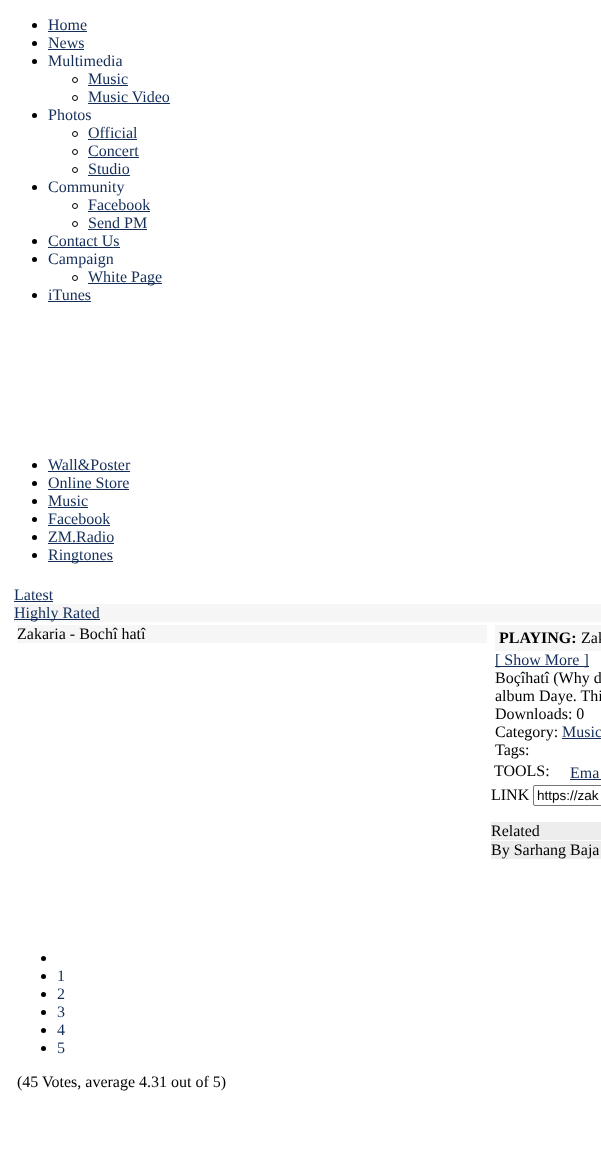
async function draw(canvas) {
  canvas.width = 601
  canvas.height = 1159
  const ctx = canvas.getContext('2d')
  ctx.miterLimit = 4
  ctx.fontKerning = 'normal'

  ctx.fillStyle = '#fff'
  ctx.fillRect(0, 0, 601, 1159)
  ctx.fillStyle = '#000'
  ctx.beginPath()
  ctx.arc(34.5, 25.5, 2.5, 0, 2 * Math.PI)
  ctx.fill()
  ctx.font = '16px Liberation Serif'
  ctx.fillStyle = '#142e58'
  ctx.fillText('‌‌Home', 48, 30)
  ctx.fillRect(48, 31, 39, 1)
  ctx.fillStyle = '#000'
  ctx.beginPath()
  ctx.arc(34.5, 43.5, 2.5, 0, 2 * Math.PI)
  ctx.fill()
  ctx.fillStyle = '#142e58'
  ctx.fillText('News', 48, 48)
  ctx.fillRect(48, 49, 36, 1)
  ctx.fillStyle = '#000'
  ctx.beginPath()
  ctx.arc(34.5, 61.5, 2.5, 0, 2 * Math.PI)
  ctx.fill()
  ctx.fillStyle = '#142e58'
  ctx.fillText('Multimedia', 48, 66)
  ctx.beginPath()
  ctx.arc(75, 80, 2.5, 0, 2 * Math.PI)
  ctx.strokeStyle = '#000'
  ctx.stroke()
  ctx.fillText('Music', 88, 84)
  ctx.fillRect(88, 85, 40, 1)
  ctx.beginPath()
  ctx.arc(75, 98, 2.5, 0, 2 * Math.PI)
  ctx.stroke()
  ctx.fillText('Music Video', 88, 102)
  ctx.fillRect(88, 103, 82, 1)
  ctx.fillStyle = '#000'
  ctx.beginPath()
  ctx.arc(34.5, 115.5, 2.5, 0, 2 * Math.PI)
  ctx.fill()
  ctx.fillStyle = '#142e58'
  ctx.fillText('Photos', 48, 120)
  ctx.beginPath()
  ctx.arc(75, 134, 2.5, 0, 2 * Math.PI)
  ctx.stroke()
  ctx.fillText('Official', 88, 138)
  ctx.fillRect(88, 139, 49, 1)
  ctx.beginPath()
  ctx.arc(75, 152, 2.5, 0, 2 * Math.PI)
  ctx.stroke()
  ctx.fillText('Concert', 88, 156)
  ctx.fillRect(88, 157, 51, 1)
  ctx.beginPath()
  ctx.arc(75, 170, 2.5, 0, 2 * Math.PI)
  ctx.stroke()
  ctx.fillText('Studio', 88, 174)
  ctx.fillRect(88, 175, 42, 1)
  ctx.fillStyle = '#000'
  ctx.beginPath()
  ctx.arc(34.5, 187.5, 2.5, 0, 2 * Math.PI)
  ctx.fill()
  ctx.fillStyle = '#142e58'
  ctx.fillText('Community', 48, 192)
  ctx.beginPath()
  ctx.arc(75, 206, 2.5, 0, 2 * Math.PI)
  ctx.stroke()
  ctx.fillText('Facebook', 88, 210)
  ctx.fillRect(88, 211, 62, 1)
  ctx.beginPath()
  ctx.arc(75, 224, 2.5, 0, 2 * Math.PI)
  ctx.stroke()
  ctx.fillText('Send PM', 88, 228)
  ctx.fillRect(88, 229, 59, 1)
  ctx.fillStyle = '#000'
  ctx.beginPath()
  ctx.arc(34.5, 241.5, 2.5, 0, 2 * Math.PI)
  ctx.fill()
  ctx.fillStyle = '#142e58'
  ctx.fillText('Contact Us', 48, 246)
  ctx.fillRect(48, 247, 72, 1)
  ctx.fillStyle = '#000'
  ctx.beginPath()
  ctx.arc(34.5, 259.5, 2.5, 0, 2 * Math.PI)
  ctx.fill()
  ctx.fillStyle = '#142e58'
  ctx.fillText('Campaign', 48, 264)
  ctx.beginPath()
  ctx.arc(75, 278, 2.5, 0, 2 * Math.PI)
  ctx.stroke()
  ctx.fillRect(88, 283, 74, 1)
  ctx.fillText('White Page', 88, 282)
  ctx.fillStyle = '#000'
  ctx.beginPath()
  ctx.arc(34.5, 295.5, 2.5, 0, 2 * Math.PI)
  ctx.fill()
  ctx.fillStyle = '#142e58'
  ctx.fillText('iTunes', 48, 300)
  ctx.fillRect(48, 301, 43, 1)
  ctx.fillStyle = '#000'
  ctx.beginPath()
  ctx.arc(34.5, 465.5, 2.5, 0, 2 * Math.PI)
  ctx.fill()
  ctx.fillStyle = '#142e58'
  ctx.fillText('Wall&Poster', 48, 470)
  ctx.fillRect(48, 471, 82, 1)
  ctx.fillStyle = '#000'
  ctx.beginPath()
  ctx.arc(34.5, 483.5, 2.5, 0, 2 * Math.PI)
  ctx.fill()
  ctx.fillStyle = '#142e58'
  ctx.fillText('Online Store', 48, 488)
  ctx.fillRect(48, 489, 81, 1)
  ctx.fillStyle = '#000'
  ctx.beginPath()
  ctx.arc(34.5, 501.5, 2.5, 0, 2 * Math.PI)
  ctx.fill()
  ctx.fillStyle = '#142e58'
  ctx.fillText('Music', 48, 506)
  ctx.fillRect(48, 507, 40, 1)
  ctx.fillStyle = '#000'
  ctx.beginPath()
  ctx.arc(34.5, 519.5, 2.5, 0, 2 * Math.PI)
  ctx.fill()
  ctx.fillStyle = '#142e58'
  ctx.fillText('Facebook', 48, 524)
  ctx.fillRect(48, 525, 62, 1)
  ctx.fillStyle = '#000'
  ctx.beginPath()
  ctx.arc(34.5, 537.5, 2.5, 0, 2 * Math.PI)
  ctx.fill()
  ctx.fillStyle = '#142e58'
  ctx.fillText('ZM.Radio', 48, 542)
  ctx.fillRect(48, 543, 66, 1)
  ctx.fillStyle = '#000'
  ctx.beginPath()
  ctx.arc(34.5, 555.5, 2.5, 0, 2 * Math.PI)
  ctx.fill()
  ctx.fillStyle = '#142e58'
  ctx.fillRect(48, 561, 65, 1)
  ctx.fillText('Ringtones', 48, 560)
  ctx.fillText('Latest', 14, 600)
  ctx.fillRect(14, 601, 39, 1)
  ctx.fillStyle = '#f6f6f6'
  ctx.fillRect(14, 604, 587, 18)
  ctx.fillStyle = '#142e58'
  ctx.fillRect(14, 619, 86, 1)
  ctx.fillText('Highly Rated', 14, 618)
  ctx.fillStyle = '#f6f6f6'
  ctx.fillRect(17, 625, 470, 18)
  ctx.fillStyle = '#000'
  ctx.fillText('Zakaria - Bochî hatî', 17, 639)
  ctx.beginPath()
  ctx.arc(43.5, 958.5, 2.5, 0, 2 * Math.PI)
  ctx.fill()
  ctx.beginPath()
  ctx.arc(43.5, 976.5, 2.5, 0, 2 * Math.PI)
  ctx.fill()
  ctx.fillStyle = '#142e58'
  ctx.fillText('1', 57, 981)
  ctx.fillStyle = '#000'
  ctx.beginPath()
  ctx.arc(43.5, 994.5, 2.5, 0, 2 * Math.PI)
  ctx.fill()
  ctx.fillStyle = '#142e58'
  ctx.fillText('2', 57, 999)
  ctx.fillStyle = '#000'
  ctx.beginPath()
  ctx.arc(43.5, 1012.5, 2.5, 0, 2 * Math.PI)
  ctx.fill()
  ctx.fillStyle = '#142e58'
  ctx.fillText('3', 57, 1017)
  ctx.fillStyle = '#000'
  ctx.beginPath()
  ctx.arc(43.5, 1030.5, 2.5, 0, 2 * Math.PI)
  ctx.fill()
  ctx.fillStyle = '#142e58'
  ctx.fillText('4', 57, 1035)
  ctx.fillStyle = '#000'
  ctx.beginPath()
  ctx.arc(43.5, 1048.5, 2.5, 0, 2 * Math.PI)
  ctx.fill()
  ctx.fillStyle = '#142e58'
  ctx.fillText('5', 57, 1053)
  ctx.fillStyle = '#000'
  ctx.fillText('(45 Votes, average 4.31 out of 5)', 17, 1087)
  ctx.fillStyle = '#f6f6f6'
  ctx.fillRect(495, 625, 106, 26)
  ctx.font = 'bold 16px Liberation Serif'
  ctx.fillStyle = '#000'
  ctx.fillText('PLAYING:', 499, 643)
  ctx.font = '16px Liberation Serif'
  ctx.fillText('Zak', 581, 643)
  ctx.fillStyle = '#142e58'
  ctx.fillRect(495, 666, 94, 1)
  ctx.fillText('[ Show More ]', 495, 665)
  ctx.fillStyle = '#000'
  ctx.fillText('Boçîhatî (Why d', 495, 683)
  ctx.fillText('album Daye. Thi', 495, 701)
  ctx.fillText('Downloads: 0', 495, 719)
  ctx.fillText('Category:', 495, 737)
  ctx.fillStyle = '#142e58'
  ctx.fillText('Music', 562, 737)
  ctx.fillRect(562, 738, 39, 1)
  ctx.fillStyle = '#000'
  ctx.fillText('Tags:', 495, 755)
  ctx.fillText('TOOLS:', 494, 776)
  ctx.fillStyle = '#142e58'
  ctx.fillText('Ema', 570, 778)
  ctx.fillRect(570, 779, 31, 1)
  ctx.fillStyle = '#000'
  ctx.fillText('LINK', 491, 800)
  ctx.beginPath()
  ctx.roundRect(533.5, 785.5, 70, 20, 1.5)
  ctx.strokeStyle = '#767676'
  ctx.stroke()
  ctx.font = '13.5px Liberation Sans'
  ctx.fillText('https://zak', 537, 800)
  ctx.fillStyle = '#ededed'
  ctx.fillRect(491, 822, 110, 18)
  ctx.font = '16px Liberation Serif'
  ctx.fillStyle = '#000'
  ctx.fillText('Related', 491, 836)
  ctx.fillStyle = '#ededed'
  ctx.fillRect(491, 841, 110, 18)
  ctx.fillStyle = '#000'
  ctx.fillText('By Sarhang Baja', 491, 855)
}

draw(document.querySelector('canvas'))
